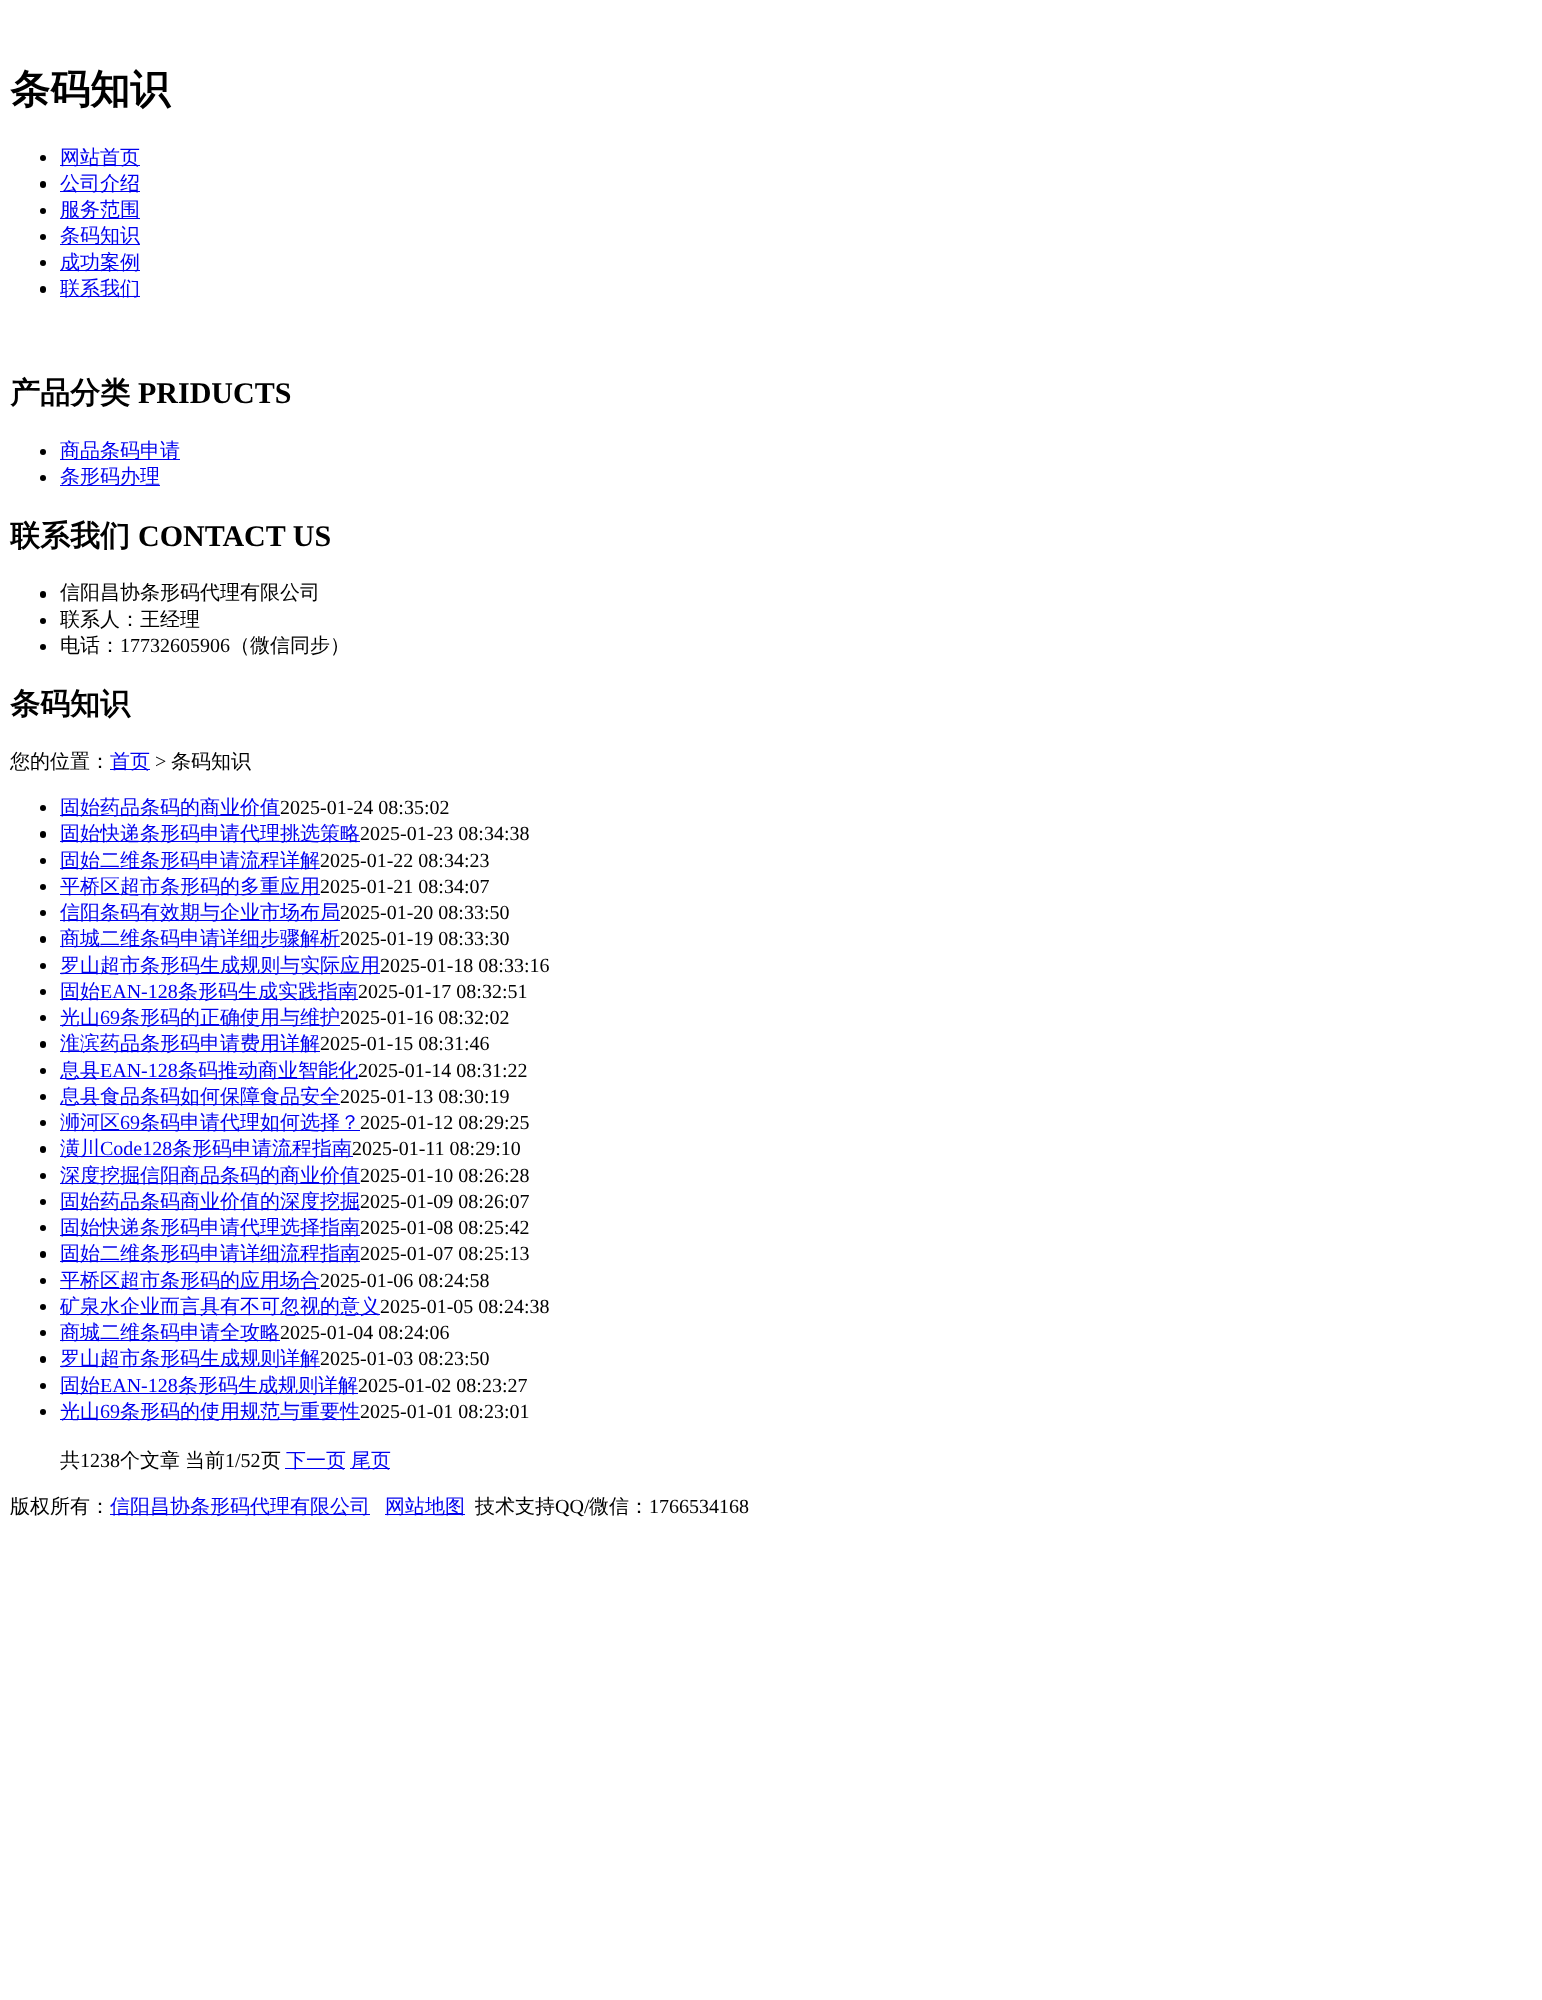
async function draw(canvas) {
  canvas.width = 1542
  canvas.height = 2000
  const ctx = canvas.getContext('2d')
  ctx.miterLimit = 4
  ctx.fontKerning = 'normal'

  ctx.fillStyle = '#fff'
  ctx.fillRect(0, 0, 1542, 2000)
  ctx.font = 'bold 40px WenQuanYi Zen Hei'
  ctx.fillStyle = '#000'
  ctx.fillText('条码知识', 10, 103)
  ctx.beginPath()
  ctx.arc(43, 158, 3, 0, 2 * Math.PI)
  ctx.fill()
  ctx.fillStyle = '#00e'
  ctx.fillRect(60, 165, 80, 1)
  ctx.font = '500 20px WenQuanYi Zen Hei'
  ctx.fillText('网站首页', 60, 164)
  ctx.fillStyle = '#000'
  ctx.beginPath()
  ctx.roundRect(40, 181, 6, 7, 3)
  ctx.fill()
  ctx.fillStyle = '#00e'
  ctx.fillRect(60, 191, 80, 1)
  ctx.fillText('公司介绍', 60, 190)
  ctx.fillStyle = '#000'
  ctx.beginPath()
  ctx.arc(43, 211, 3, 0, 2 * Math.PI)
  ctx.fill()
  ctx.fillStyle = '#00e'
  ctx.fillRect(60, 218, 80, 1)
  ctx.fillText('服务范围', 60, 216)
  ctx.fillStyle = '#000'
  ctx.beginPath()
  ctx.arc(43, 237, 3, 0, 2 * Math.PI)
  ctx.fill()
  ctx.fillStyle = '#00e'
  ctx.fillRect(60, 244, 80, 1)
  ctx.fillText('条码知识', 60, 242)
  ctx.fillStyle = '#000'
  ctx.beginPath()
  ctx.arc(43, 263, 3, 0, 2 * Math.PI)
  ctx.fill()
  ctx.fillStyle = '#00e'
  ctx.fillRect(60, 270, 80, 1)
  ctx.fillText('成功案例', 60, 269)
  ctx.fillStyle = '#000'
  ctx.beginPath()
  ctx.roundRect(40, 286, 6, 7, 3)
  ctx.fill()
  ctx.fillStyle = '#00e'
  ctx.fillRect(60, 296, 80, 1)
  ctx.fillText('联系我们', 60, 295)
  ctx.font = 'bold 30px WenQuanYi Zen Hei'
  ctx.fillStyle = '#000'
  ctx.fillText('产品分类', 10, 403)
  ctx.font = 'bold 30px Liberation Serif'
  ctx.fillText('PRIDUCTS', 138, 403)
  ctx.beginPath()
  ctx.arc(43, 452, 3, 0, 2 * Math.PI)
  ctx.fill()
  ctx.fillStyle = '#00e'
  ctx.fillRect(60, 459, 120, 1)
  ctx.font = '500 20px WenQuanYi Zen Hei'
  ctx.fillText('商品条码申请', 60, 457)
  ctx.fillStyle = '#000'
  ctx.beginPath()
  ctx.arc(43, 478, 3, 0, 2 * Math.PI)
  ctx.fill()
  ctx.fillStyle = '#00e'
  ctx.fillRect(60, 485, 100, 1)
  ctx.fillText('条形码办理', 60, 483)
  ctx.font = 'bold 30px WenQuanYi Zen Hei'
  ctx.fillStyle = '#000'
  ctx.fillText('联系我们', 10, 546)
  ctx.font = 'bold 30px Liberation Serif'
  ctx.fillText('CONTACT US', 138, 546)
  ctx.beginPath()
  ctx.roundRect(40, 591, 6, 7, 3)
  ctx.fill()
  ctx.font = '500 20px WenQuanYi Zen Hei'
  ctx.fillText('信阳昌协条形码代理有限公司', 60, 599)
  ctx.beginPath()
  ctx.arc(43, 621, 3, 0, 2 * Math.PI)
  ctx.fill()
  ctx.fillText('联系人：王经理', 60, 626)
  ctx.beginPath()
  ctx.arc(43, 647, 3, 0, 2 * Math.PI)
  ctx.fill()
  ctx.fillText('电话：', 60, 652)
  ctx.font = '20px Liberation Serif'
  ctx.fillText('17732605906', 120, 652)
  ctx.font = '500 20px WenQuanYi Zen Hei'
  ctx.fillText('（微信同步）', 230, 652)
  ctx.font = 'bold 30px WenQuanYi Zen Hei'
  ctx.fillText('条码知识', 10, 714)
  ctx.font = '500 20px WenQuanYi Zen Hei'
  ctx.fillText('您的位置：', 10, 768)
  ctx.fillStyle = '#00e'
  ctx.fillRect(110, 769, 40, 1)
  ctx.fillText('首页', 110, 768)
  ctx.font = '20px Liberation Serif'
  ctx.fillStyle = '#000'
  ctx.fillText('>', 155, 768)
  ctx.font = '500 20px WenQuanYi Zen Hei'
  ctx.fillText('条码知识', 171, 768)
  ctx.beginPath()
  ctx.arc(43, 808, 3, 0, 2 * Math.PI)
  ctx.fill()
  ctx.fillStyle = '#00e'
  ctx.fillRect(60, 815, 220, 1)
  ctx.fillText('固始药品条码的商业价值', 60, 814)
  ctx.font = '20px Liberation Serif'
  ctx.fillStyle = '#000'
  ctx.fillText('2025-01-24 08:35:02', 280, 814)
  ctx.beginPath()
  ctx.roundRect(40, 831, 6, 7, 3)
  ctx.fill()
  ctx.fillStyle = '#00e'
  ctx.fillRect(60, 841, 300, 1)
  ctx.font = '500 20px WenQuanYi Zen Hei'
  ctx.fillText('固始快递条形码申请代理挑选策略', 60, 840)
  ctx.font = '20px Liberation Serif'
  ctx.fillStyle = '#000'
  ctx.fillText('2025-01-23 08:34:38', 360, 840)
  ctx.beginPath()
  ctx.arc(43, 861, 3, 0, 2 * Math.PI)
  ctx.fill()
  ctx.fillStyle = '#00e'
  ctx.fillRect(60, 868, 260, 1)
  ctx.font = '500 20px WenQuanYi Zen Hei'
  ctx.fillText('固始二维条形码申请流程详解', 60, 867)
  ctx.font = '20px Liberation Serif'
  ctx.fillStyle = '#000'
  ctx.fillText('2025-01-22 08:34:23', 320, 867)
  ctx.beginPath()
  ctx.arc(43, 887, 3, 0, 2 * Math.PI)
  ctx.fill()
  ctx.fillStyle = '#00e'
  ctx.fillRect(60, 894, 260, 1)
  ctx.font = '500 20px WenQuanYi Zen Hei'
  ctx.fillText('平桥区超市条形码的多重应用', 60, 893)
  ctx.font = '20px Liberation Serif'
  ctx.fillStyle = '#000'
  ctx.fillText('2025-01-21 08:34:07', 320, 893)
  ctx.beginPath()
  ctx.arc(43, 913, 3, 0, 2 * Math.PI)
  ctx.fill()
  ctx.fillStyle = '#00e'
  ctx.fillRect(60, 920, 280, 1)
  ctx.font = '500 20px WenQuanYi Zen Hei'
  ctx.fillText('信阳条码有效期与企业市场布局', 60, 919)
  ctx.font = '20px Liberation Serif'
  ctx.fillStyle = '#000'
  ctx.fillText('2025-01-20 08:33:50', 340, 919)
  ctx.beginPath()
  ctx.roundRect(40, 936, 6, 7, 3)
  ctx.fill()
  ctx.fillStyle = '#00e'
  ctx.fillRect(60, 946, 280, 1)
  ctx.font = '500 20px WenQuanYi Zen Hei'
  ctx.fillText('商城二维条码申请详细步骤解析', 60, 945)
  ctx.font = '20px Liberation Serif'
  ctx.fillStyle = '#000'
  ctx.fillText('2025-01-19 08:33:30', 340, 945)
  ctx.beginPath()
  ctx.arc(43, 966, 3, 0, 2 * Math.PI)
  ctx.fill()
  ctx.fillStyle = '#00e'
  ctx.fillRect(60, 973, 320, 1)
  ctx.font = '500 20px WenQuanYi Zen Hei'
  ctx.fillText('罗山超市条形码生成规则与实际应用', 60, 972)
  ctx.font = '20px Liberation Serif'
  ctx.fillStyle = '#000'
  ctx.fillText('2025-01-18 08:33:16', 380, 972)
  ctx.beginPath()
  ctx.arc(43, 992, 3, 0, 2 * Math.PI)
  ctx.fill()
  ctx.fillStyle = '#00e'
  ctx.fillRect(60, 999, 298, 1)
  ctx.font = '500 20px WenQuanYi Zen Hei'
  ctx.fillText('固始', 60, 998)
  ctx.font = '20px Liberation Serif'
  ctx.fillText('EAN-128', 100, 998)
  ctx.font = '500 20px WenQuanYi Zen Hei'
  ctx.fillText('条形码生成实践指南', 178, 998)
  ctx.font = '20px Liberation Serif'
  ctx.fillStyle = '#000'
  ctx.fillText('2025-01-17 08:32:51', 358, 998)
  ctx.beginPath()
  ctx.arc(43, 1018, 3, 0, 2 * Math.PI)
  ctx.fill()
  ctx.fillStyle = '#00e'
  ctx.fillRect(60, 1025, 280, 1)
  ctx.font = '500 20px WenQuanYi Zen Hei'
  ctx.fillText('光山', 60, 1024)
  ctx.font = '20px Liberation Serif'
  ctx.fillText('69', 100, 1024)
  ctx.font = '500 20px WenQuanYi Zen Hei'
  ctx.fillText('条形码的正确使用与维护', 120, 1024)
  ctx.font = '20px Liberation Serif'
  ctx.fillStyle = '#000'
  ctx.fillText('2025-01-16 08:32:02', 340, 1024)
  ctx.beginPath()
  ctx.roundRect(40, 1041, 6, 7, 3)
  ctx.fill()
  ctx.fillStyle = '#00e'
  ctx.fillRect(60, 1051, 260, 1)
  ctx.font = '500 20px WenQuanYi Zen Hei'
  ctx.fillText('淮滨药品条形码申请费用详解', 60, 1050)
  ctx.font = '20px Liberation Serif'
  ctx.fillStyle = '#000'
  ctx.fillText('2025-01-15 08:31:46', 320, 1050)
  ctx.beginPath()
  ctx.arc(43, 1071, 3, 0, 2 * Math.PI)
  ctx.fill()
  ctx.fillStyle = '#00e'
  ctx.fillRect(60, 1078, 298, 1)
  ctx.font = '500 20px WenQuanYi Zen Hei'
  ctx.fillText('息县', 60, 1077)
  ctx.font = '20px Liberation Serif'
  ctx.fillText('EAN-128', 100, 1077)
  ctx.font = '500 20px WenQuanYi Zen Hei'
  ctx.fillText('条码推动商业智能化', 178, 1077)
  ctx.font = '20px Liberation Serif'
  ctx.fillStyle = '#000'
  ctx.fillText('2025-01-14 08:31:22', 358, 1077)
  ctx.beginPath()
  ctx.arc(43, 1097, 3, 0, 2 * Math.PI)
  ctx.fill()
  ctx.fillStyle = '#00e'
  ctx.fillRect(60, 1104, 280, 1)
  ctx.font = '500 20px WenQuanYi Zen Hei'
  ctx.fillText('息县食品条码如何保障食品安全', 60, 1103)
  ctx.font = '20px Liberation Serif'
  ctx.fillStyle = '#000'
  ctx.fillText('2025-01-13 08:30:19', 340, 1103)
  ctx.beginPath()
  ctx.arc(43, 1123, 3, 0, 2 * Math.PI)
  ctx.fill()
  ctx.fillStyle = '#00e'
  ctx.fillRect(60, 1130, 300, 1)
  ctx.font = '500 20px WenQuanYi Zen Hei'
  ctx.fillText('浉河区', 60, 1129)
  ctx.font = '20px Liberation Serif'
  ctx.fillText('69', 120, 1129)
  ctx.font = '500 20px WenQuanYi Zen Hei'
  ctx.fillText('条码申请代理如何选择？', 140, 1129)
  ctx.font = '20px Liberation Serif'
  ctx.fillStyle = '#000'
  ctx.fillText('2025-01-12 08:29:25', 360, 1129)
  ctx.beginPath()
  ctx.roundRect(40, 1146, 6, 7, 3)
  ctx.fill()
  ctx.fillStyle = '#00e'
  ctx.fillRect(60, 1156, 293, 1)
  ctx.font = '500 20px WenQuanYi Zen Hei'
  ctx.fillText('潢川', 60, 1155)
  ctx.font = '20px Liberation Serif'
  ctx.fillText('Code128', 100, 1155)
  ctx.font = '500 20px WenQuanYi Zen Hei'
  ctx.fillText('条形码申请流程指南', 172, 1155)
  ctx.font = '20px Liberation Serif'
  ctx.fillStyle = '#000'
  ctx.fillText('2025-01-11 08:29:10', 352, 1155)
  ctx.beginPath()
  ctx.arc(43, 1176, 3, 0, 2 * Math.PI)
  ctx.fill()
  ctx.fillStyle = '#00e'
  ctx.fillRect(60, 1183, 300, 1)
  ctx.font = '500 20px WenQuanYi Zen Hei'
  ctx.fillText('深度挖掘信阳商品条码的商业价值', 60, 1182)
  ctx.font = '20px Liberation Serif'
  ctx.fillStyle = '#000'
  ctx.fillText('2025-01-10 08:26:28', 360, 1182)
  ctx.beginPath()
  ctx.arc(43, 1202, 3, 0, 2 * Math.PI)
  ctx.fill()
  ctx.fillStyle = '#00e'
  ctx.fillRect(60, 1209, 300, 1)
  ctx.font = '500 20px WenQuanYi Zen Hei'
  ctx.fillText('固始药品条码商业价值的深度挖掘', 60, 1208)
  ctx.font = '20px Liberation Serif'
  ctx.fillStyle = '#000'
  ctx.fillText('2025-01-09 08:26:07', 360, 1208)
  ctx.beginPath()
  ctx.arc(43, 1228, 3, 0, 2 * Math.PI)
  ctx.fill()
  ctx.fillStyle = '#00e'
  ctx.fillRect(60, 1235, 300, 1)
  ctx.font = '500 20px WenQuanYi Zen Hei'
  ctx.fillText('固始快递条形码申请代理选择指南', 60, 1234)
  ctx.font = '20px Liberation Serif'
  ctx.fillStyle = '#000'
  ctx.fillText('2025-01-08 08:25:42', 360, 1234)
  ctx.beginPath()
  ctx.roundRect(40, 1251, 6, 7, 3)
  ctx.fill()
  ctx.fillStyle = '#00e'
  ctx.fillRect(60, 1261, 300, 1)
  ctx.font = '500 20px WenQuanYi Zen Hei'
  ctx.fillText('固始二维条形码申请详细流程指南', 60, 1260)
  ctx.font = '20px Liberation Serif'
  ctx.fillStyle = '#000'
  ctx.fillText('2025-01-07 08:25:13', 360, 1260)
  ctx.beginPath()
  ctx.arc(43, 1281, 3, 0, 2 * Math.PI)
  ctx.fill()
  ctx.fillStyle = '#00e'
  ctx.fillRect(60, 1288, 260, 1)
  ctx.font = '500 20px WenQuanYi Zen Hei'
  ctx.fillText('平桥区超市条形码的应用场合', 60, 1287)
  ctx.font = '20px Liberation Serif'
  ctx.fillStyle = '#000'
  ctx.fillText('2025-01-06 08:24:58', 320, 1287)
  ctx.beginPath()
  ctx.arc(43, 1307, 3, 0, 2 * Math.PI)
  ctx.fill()
  ctx.fillStyle = '#00e'
  ctx.fillRect(60, 1314, 320, 1)
  ctx.font = '500 20px WenQuanYi Zen Hei'
  ctx.fillText('矿泉水企业而言具有不可忽视的意义', 60, 1313)
  ctx.font = '20px Liberation Serif'
  ctx.fillStyle = '#000'
  ctx.fillText('2025-01-05 08:24:38', 380, 1313)
  ctx.beginPath()
  ctx.arc(43, 1333, 3, 0, 2 * Math.PI)
  ctx.fill()
  ctx.fillStyle = '#00e'
  ctx.fillRect(60, 1340, 220, 1)
  ctx.font = '500 20px WenQuanYi Zen Hei'
  ctx.fillText('商城二维条码申请全攻略', 60, 1339)
  ctx.font = '20px Liberation Serif'
  ctx.fillStyle = '#000'
  ctx.fillText('2025-01-04 08:24:06', 280, 1339)
  ctx.beginPath()
  ctx.roundRect(40, 1356, 6, 7, 3)
  ctx.fill()
  ctx.fillStyle = '#00e'
  ctx.fillRect(60, 1366, 260, 1)
  ctx.font = '500 20px WenQuanYi Zen Hei'
  ctx.fillText('罗山超市条形码生成规则详解', 60, 1365)
  ctx.font = '20px Liberation Serif'
  ctx.fillStyle = '#000'
  ctx.fillText('2025-01-03 08:23:50', 320, 1365)
  ctx.beginPath()
  ctx.arc(43, 1386, 3, 0, 2 * Math.PI)
  ctx.fill()
  ctx.fillStyle = '#00e'
  ctx.fillRect(60, 1393, 298, 1)
  ctx.font = '500 20px WenQuanYi Zen Hei'
  ctx.fillText('固始', 60, 1392)
  ctx.font = '20px Liberation Serif'
  ctx.fillText('EAN-128', 100, 1392)
  ctx.font = '500 20px WenQuanYi Zen Hei'
  ctx.fillText('条形码生成规则详解', 178, 1392)
  ctx.font = '20px Liberation Serif'
  ctx.fillStyle = '#000'
  ctx.fillText('2025-01-02 08:23:27', 358, 1392)
  ctx.beginPath()
  ctx.arc(43, 1412, 3, 0, 2 * Math.PI)
  ctx.fill()
  ctx.fillStyle = '#00e'
  ctx.fillRect(60, 1419, 300, 1)
  ctx.font = '500 20px WenQuanYi Zen Hei'
  ctx.fillText('光山', 60, 1418)
  ctx.font = '20px Liberation Serif'
  ctx.fillText('69', 100, 1418)
  ctx.font = '500 20px WenQuanYi Zen Hei'
  ctx.fillText('条形码的使用规范与重要性', 120, 1418)
  ctx.font = '20px Liberation Serif'
  ctx.fillStyle = '#000'
  ctx.fillText('2025-01-01 08:23:01', 360, 1418)
  ctx.font = '500 20px WenQuanYi Zen Hei'
  ctx.fillText('共', 60, 1467)
  ctx.font = '20px Liberation Serif'
  ctx.fillText('1238', 80, 1467)
  ctx.wordSpacing = '-1px'
  ctx.font = '500 20px WenQuanYi Zen Hei'
  ctx.fillText('个文章 当前', 120, 1467)
  ctx.wordSpacing = '0px'
  ctx.font = '20px Liberation Serif'
  ctx.fillText('1/52', 225, 1467)
  ctx.font = '500 20px WenQuanYi Zen Hei'
  ctx.fillText('页', 261, 1467)
  ctx.fillStyle = '#00e'
  ctx.fillRect(285, 1468, 60, 1)
  ctx.fillText('下一页', 286, 1467)
  ctx.fillRect(350, 1468, 40, 1)
  ctx.fillText('尾页', 351, 1467)
  ctx.fillStyle = '#000'
  ctx.fillText('版权所有：', 10, 1513)
  ctx.fillStyle = '#00e'
  ctx.fillRect(110, 1514, 260, 1)
  ctx.fillText('信阳昌协条形码代理有限公司', 110, 1513)
  ctx.fillRect(385, 1514, 80, 1)
  ctx.fillText('网站地图', 385, 1513)
  ctx.fillStyle = '#000'
  ctx.fillText('技术支持', 475, 1513)
  ctx.font = '20px Liberation Serif'
  ctx.fillText('QQ/', 555, 1513)
  ctx.font = '500 20px WenQuanYi Zen Hei'
  ctx.fillText('微信：', 589, 1513)
  ctx.font = '20px Liberation Serif'
  ctx.fillText('1766534168', 649, 1513)
}

draw(document.querySelector('canvas'))
